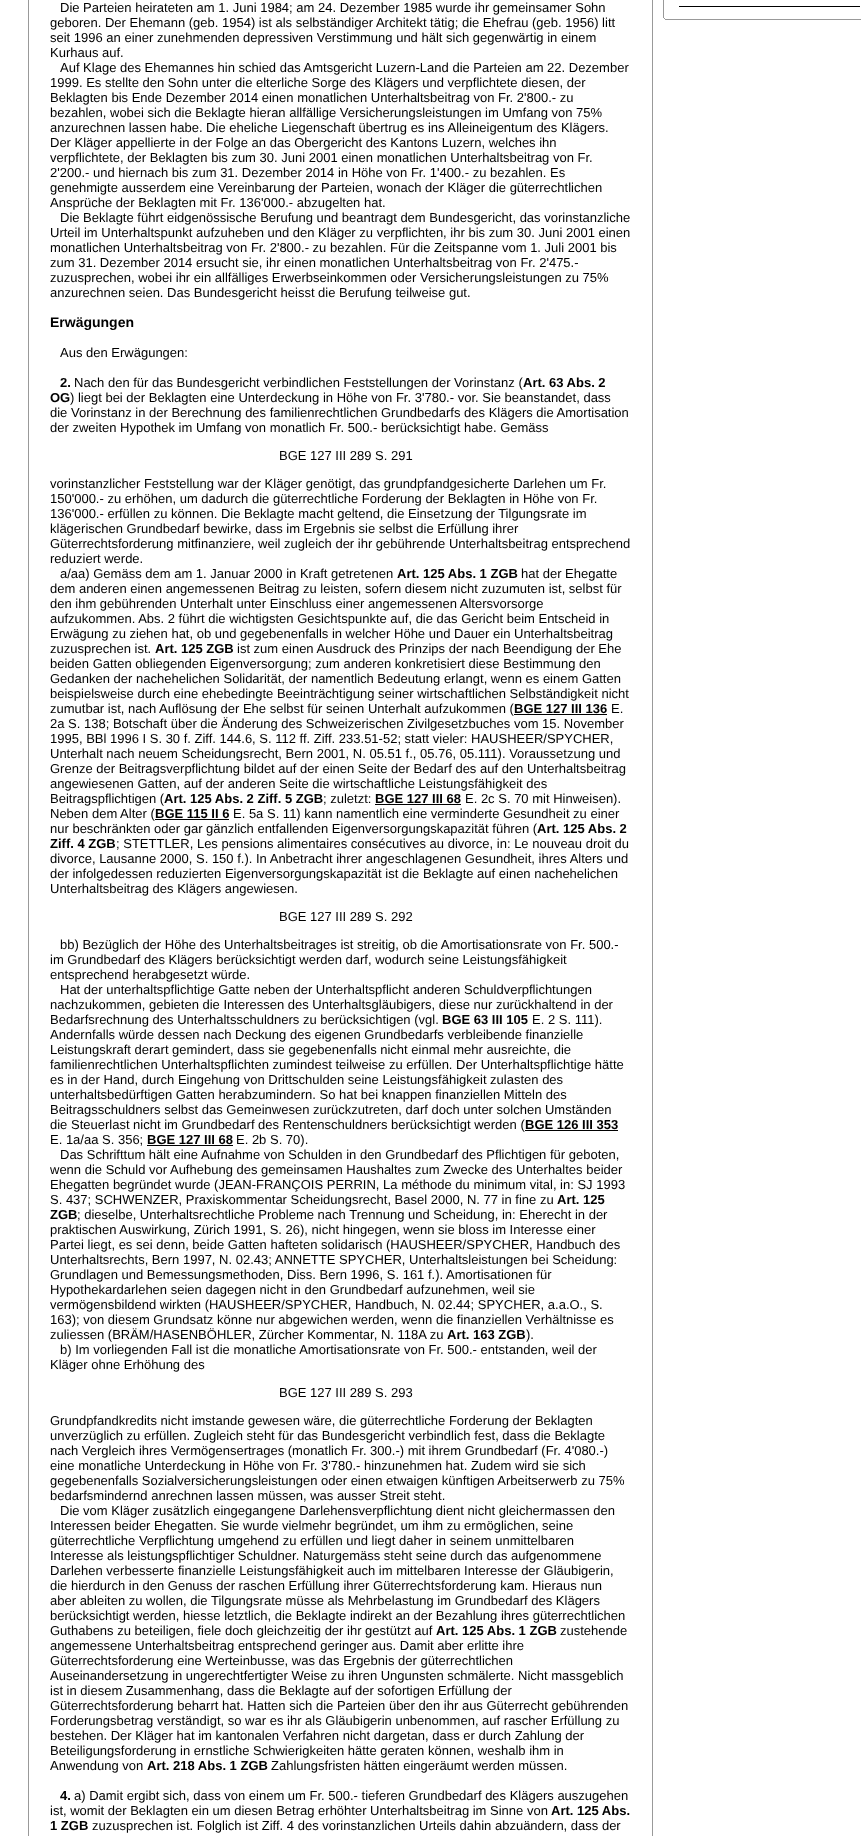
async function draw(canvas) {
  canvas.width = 861
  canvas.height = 1836
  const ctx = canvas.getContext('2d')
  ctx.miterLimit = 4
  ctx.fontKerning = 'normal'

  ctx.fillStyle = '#fff'
  ctx.fillRect(0, 0, 861, 1836)
  ctx.fillStyle = '#999'
  ctx.fillRect(652, 0, 1, 1836)
  ctx.fillRect(28, 0, 1, 1836)
  ctx.font = '13px Liberation Sans'
  ctx.fillStyle = '#000'
  ctx.fillText('Die Parteien heirateten am 1. Juni 1984; am 24. Dezember 1985 wurde ihr gemeinsamer Sohn', 60, 12)
  ctx.fillText('geboren. Der Ehemann (geb. 1954) ist als selbständiger Architekt tätig; die Ehefrau (geb. 1956) litt', 50, 27)
  ctx.fillText('seit 1996 an einer zunehmenden depressiven Verstimmung und hält sich gegenwärtig in einem', 50, 42)
  ctx.fillText('Kurhaus auf.', 50, 57)
  ctx.fillText('Auf Klage des Ehemannes hin schied das Amtsgericht Luzern-Land die Parteien am 22. Dezember', 60, 72)
  ctx.fillText('1999. Es stellte den Sohn unter die elterliche Sorge des Klägers und verpflichtete diesen, der', 50, 87)
  ctx.fillText('Beklagten bis Ende Dezember 2014 einen monatlichen Unterhaltsbeitrag von Fr. 2\'800.- zu', 50, 102)
  ctx.fillText('bezahlen, wobei sich die Beklagte hieran allfällige Versicherungsleistungen im Umfang von 75%', 50, 117)
  ctx.fillText('anzurechnen lassen habe. Die eheliche Liegenschaft übertrug es ins Alleineigentum des Klägers.', 50, 132)
  ctx.fillText('Der Kläger appellierte in der Folge an das Obergericht des Kantons Luzern, welches ihn', 50, 147)
  ctx.fillText('verpflichtete, der Beklagten bis zum 30. Juni 2001 einen monatlichen Unterhaltsbeitrag von Fr.', 50, 162)
  ctx.fillText('2\'200.- und hiernach bis zum 31. Dezember 2014 in Höhe von Fr. 1\'400.- zu bezahlen. Es', 50, 177)
  ctx.fillText('genehmigte ausserdem eine Vereinbarung der Parteien, wonach der Kläger die güterrechtlichen', 50, 192)
  ctx.fillText('Ansprüche der Beklagten mit Fr. 136\'000.- abzugelten hat.', 50, 207)
  ctx.fillText('Die Beklagte führt eidgenössische Berufung und beantragt dem Bundesgericht, das vorinstanzliche', 60, 222)
  ctx.fillText('Urteil im Unterhaltspunkt aufzuheben und den Kläger zu verpflichten, ihr bis zum 30. Juni 2001 einen', 50, 237)
  ctx.fillText('monatlichen Unterhaltsbeitrag von Fr. 2\'800.- zu bezahlen. Für die Zeitspanne vom 1. Juli 2001 bis', 50, 252)
  ctx.fillText('zum 31. Dezember 2014 ersucht sie, ihr einen monatlichen Unterhaltsbeitrag von Fr. 2\'475.-', 50, 267)
  ctx.fillText('zuzusprechen, wobei ihr ein allfälliges Erwerbseinkommen oder Versicherungsleistungen zu 75%', 50, 282)
  ctx.fillText('anzurechnen seien. Das Bundesgericht heisst die Berufung teilweise gut.', 50, 297)
  ctx.font = 'bold 14px Liberation Sans'
  ctx.fillText('Erwägungen', 50, 327)
  ctx.font = '13px Liberation Sans'
  ctx.fillText('Aus den Erwägungen:', 60, 357)
  ctx.font = 'bold 13px Liberation Sans'
  ctx.fillText('2.', 60, 387)
  ctx.font = '13px Liberation Sans'
  ctx.fillText('Nach den für das Bundesgericht verbindlichen Feststellungen der Vorinstanz (', 74, 387)
  ctx.font = 'bold 13px Liberation Sans'
  ctx.fillText('Art. 63 Abs. 2', 523, 387)
  ctx.fillText('OG', 50, 402)
  ctx.font = '13px Liberation Sans'
  ctx.fillText(') liegt bei der Beklagten eine Unterdeckung in Höhe von Fr. 3\'780.- vor. Sie beanstandet, dass', 70, 402)
  ctx.fillText('die Vorinstanz in der Berechnung des familienrechtlichen Grundbedarfs des Klägers die Amortisation', 50, 417)
  ctx.fillText('der zweiten Hypothek im Umfang von monatlich Fr. 500.- berücksichtigt habe. Gemäss', 50, 432)
  ctx.fillText('BGE 127 III 289 S. 291', 279, 460)
  ctx.fillText('vorinstanzlicher Feststellung war der Kläger genötigt, das grundpfandgesicherte Darlehen um Fr.', 50, 488)
  ctx.fillText('150\'000.- zu erhöhen, um dadurch die güterrechtliche Forderung der Beklagten in Höhe von Fr.', 50, 503)
  ctx.fillText('136\'000.- erfüllen zu können. Die Beklagte macht geltend, die Einsetzung der Tilgungsrate im', 50, 518)
  ctx.fillText('klägerischen Grundbedarf bewirke, dass im Ergebnis sie selbst die Erfüllung ihrer', 50, 533)
  ctx.fillText('Güterrechtsforderung mitfinanziere, weil zugleich der ihr gebührende Unterhaltsbeitrag entsprechend', 50, 548)
  ctx.fillText('reduziert werde.', 50, 563)
  ctx.fillText('a/aa) Gemäss dem am 1. Januar 2000 in Kraft getretenen', 60, 578)
  ctx.font = 'bold 13px Liberation Sans'
  ctx.fillText('Art. 125 Abs. 1 ZGB', 397, 578)
  ctx.font = '13px Liberation Sans'
  ctx.fillText('hat der Ehegatte', 521, 578)
  ctx.fillText('dem anderen einen angemessenen Beitrag zu leisten, sofern diesem nicht zuzumuten ist, selbst für', 50, 593)
  ctx.fillText('den ihm gebührenden Unterhalt unter Einschluss einer angemessenen Altersvorsorge', 50, 608)
  ctx.fillText('aufzukommen. Abs. 2 führt die wichtigsten Gesichtspunkte auf, die das Gericht beim Entscheid in', 50, 623)
  ctx.fillText('Erwägung zu ziehen hat, ob und gegebenenfalls in welcher Höhe und Dauer ein Unterhaltsbeitrag', 50, 638)
  ctx.fillText('zuzusprechen ist.', 50, 653)
  ctx.font = 'bold 13px Liberation Sans'
  ctx.fillText('Art. 125 ZGB', 155, 653)
  ctx.font = '13px Liberation Sans'
  ctx.fillText('ist zum einen Ausdruck des Prinzips der nach Beendigung der Ehe', 237, 653)
  ctx.fillText('beiden Gatten obliegenden Eigenversorgung; zum anderen konkretisiert diese Bestimmung den', 50, 668)
  ctx.fillText('Gedanken der nachehelichen Solidarität, der namentlich Bedeutung erlangt, wenn es einem Gatten', 50, 683)
  ctx.fillText('beispielsweise durch eine ehebedingte Beeinträchtigung seiner wirtschaftlichen Selbständigkeit nicht', 50, 698)
  ctx.fillText('zumutbar ist, nach Auflösung der Ehe selbst für seinen Unterhalt aufzukommen (', 50, 713)
  ctx.font = 'bold 13px Liberation Sans'
  ctx.fillText('BGE 127 III 136', 514, 713)
  ctx.fillRect(514, 714, 93, 1)
  ctx.font = '13px Liberation Sans'
  ctx.fillText('E.', 611, 713)
  ctx.fillText('2a S. 138; Botschaft über die Änderung des Schweizerischen Zivilgesetzbuches vom 15. November', 50, 728)
  ctx.fillText('1995, BBl 1996 I S. 30 f. Ziff. 144.6, S. 112 ff. Ziff. 233.51-52; statt vieler: HAUSHEER/SPYCHER,', 50, 743)
  ctx.fillText('Unterhalt nach neuem Scheidungsrecht, Bern 2001, N. 05.51 f., 05.76, 05.111). Voraussetzung und', 50, 758)
  ctx.fillText('Grenze der Beitragsverpflichtung bildet auf der einen Seite der Bedarf des auf den Unterhaltsbeitrag', 50, 773)
  ctx.fillText('angewiesenen Gatten, auf der anderen Seite die wirtschaftliche Leistungsfähigkeit des', 50, 788)
  ctx.fillText('Beitragspflichtigen (', 50, 803)
  ctx.font = 'bold 13px Liberation Sans'
  ctx.fillText('Art. 125 Abs. 2 Ziff. 5 ZGB', 164, 803)
  ctx.font = '13px Liberation Sans'
  ctx.fillText('; zuletzt:', 323, 803)
  ctx.font = 'bold 13px Liberation Sans'
  ctx.fillText('BGE 127 III 68', 375, 803)
  ctx.fillRect(375, 804, 86, 1)
  ctx.font = '13px Liberation Sans'
  ctx.fillText('E. 2c S. 70 mit Hinweisen).', 465, 803)
  ctx.fillText('Neben dem Alter (', 50, 818)
  ctx.font = 'bold 13px Liberation Sans'
  ctx.fillText('BGE 115 II 6', 155, 818)
  ctx.fillRect(155, 819, 74, 1)
  ctx.font = '13px Liberation Sans'
  ctx.fillText('E. 5a S. 11) kann namentlich eine verminderte Gesundheit zu einer', 233, 818)
  ctx.fillText('nur beschränkten oder gar gänzlich entfallenden Eigenversorgungskapazität führen (', 50, 833)
  ctx.font = 'bold 13px Liberation Sans'
  ctx.fillText('Art. 125 Abs. 2', 537, 833)
  ctx.fillText('Ziff. 4 ZGB', 50, 848)
  ctx.font = '13px Liberation Sans'
  ctx.fillText('; STETTLER, Les pensions alimentaires consécutives au divorce, in: Le nouveau droit du', 116, 848)
  ctx.fillText('divorce, Lausanne 2000, S. 150 f.). In Anbetracht ihrer angeschlagenen Gesundheit, ihres Alters und', 50, 863)
  ctx.fillText('der infolgedessen reduzierten Eigenversorgungskapazität ist die Beklagte auf einen nachehelichen', 50, 878)
  ctx.fillText('Unterhaltsbeitrag des Klägers angewiesen.', 50, 893)
  ctx.fillText('BGE 127 III 289 S. 292', 279, 921)
  ctx.fillText('bb) Bezüglich der Höhe des Unterhaltsbeitrages ist streitig, ob die Amortisationsrate von Fr. 500.-', 60, 949)
  ctx.fillText('im Grundbedarf des Klägers berücksichtigt werden darf, wodurch seine Leistungsfähigkeit', 50, 964)
  ctx.fillText('entsprechend herabgesetzt würde.', 50, 979)
  ctx.fillText('Hat der unterhaltspflichtige Gatte neben der Unterhaltspflicht anderen Schuldverpflichtungen', 60, 994)
  ctx.fillText('nachzukommen, gebieten die Interessen des Unterhaltsgläubigers, diese nur zurückhaltend in der', 50, 1009)
  ctx.fillText('Bedarfsrechnung des Unterhaltsschuldners zu berücksichtigen (vgl.', 50, 1024)
  ctx.font = 'bold 13px Liberation Sans'
  ctx.fillText('BGE 63 III 105', 442, 1024)
  ctx.font = '13px Liberation Sans'
  ctx.fillText('E. 2 S. 111).', 532, 1024)
  ctx.fillText('Andernfalls würde dessen nach Deckung des eigenen Grundbedarfs verbleibende finanzielle', 50, 1039)
  ctx.fillText('Leistungskraft derart gemindert, dass sie gegebenenfalls nicht einmal mehr ausreichte, die', 50, 1054)
  ctx.fillText('familienrechtlichen Unterhaltspflichten zumindest teilweise zu erfüllen. Der Unterhaltspflichtige hätte', 50, 1069)
  ctx.fillText('es in der Hand, durch Eingehung von Drittschulden seine Leistungsfähigkeit zulasten des', 50, 1084)
  ctx.fillText('unterhaltsbedürftigen Gatten herabzumindern. So hat bei knappen finanziellen Mitteln des', 50, 1099)
  ctx.fillText('Beitragsschuldners selbst das Gemeinwesen zurückzutreten, darf doch unter solchen Umständen', 50, 1114)
  ctx.fillText('die Steuerlast nicht im Grundbedarf des Rentenschuldners berücksichtigt werden (', 50, 1129)
  ctx.font = 'bold 13px Liberation Sans'
  ctx.fillText('BGE 126 III 353', 525, 1129)
  ctx.fillRect(525, 1130, 93, 1)
  ctx.font = '13px Liberation Sans'
  ctx.fillText('E. 1a/aa S. 356;', 50, 1144)
  ctx.font = 'bold 13px Liberation Sans'
  ctx.fillText('BGE 127 III 68', 147, 1144)
  ctx.fillRect(147, 1145, 86, 1)
  ctx.font = '13px Liberation Sans'
  ctx.fillText('E. 2b S. 70).', 236, 1144)
  ctx.fillText('Das Schrifttum hält eine Aufnahme von Schulden in den Grundbedarf des Pflichtigen für geboten,', 60, 1159)
  ctx.fillText('wenn die Schuld vor Aufhebung des gemeinsamen Haushaltes zum Zwecke des Unterhaltes beider', 50, 1174)
  ctx.fillText('Ehegatten begründet wurde (JEAN-FRANÇOIS PERRIN, La méthode du minimum vital, in: SJ 1993', 50, 1189)
  ctx.fillText('S. 437; SCHWENZER, Praxiskommentar Scheidungsrecht, Basel 2000, N. 77 in fine zu', 50, 1204)
  ctx.font = 'bold 13px Liberation Sans'
  ctx.fillText('Art. 125', 557, 1204)
  ctx.fillText('ZGB', 50, 1219)
  ctx.font = '13px Liberation Sans'
  ctx.fillText('; dieselbe, Unterhaltsrechtliche Probleme nach Trennung und Scheidung, in: Eherecht in der', 77, 1219)
  ctx.fillText('praktischen Auswirkung, Zürich 1991, S. 26), nicht hingegen, wenn sie bloss im Interesse einer', 50, 1234)
  ctx.fillText('Partei liegt, es sei denn, beide Gatten hafteten solidarisch (HAUSHEER/SPYCHER, Handbuch des', 50, 1249)
  ctx.fillText('Unterhaltsrechts, Bern 1997, N. 02.43; ANNETTE SPYCHER, Unterhaltsleistungen bei Scheidung:', 50, 1264)
  ctx.fillText('Grundlagen und Bemessungsmethoden, Diss. Bern 1996, S. 161 f.). Amortisationen für', 50, 1279)
  ctx.fillText('Hypothekardarlehen seien dagegen nicht in den Grundbedarf aufzunehmen, weil sie', 50, 1294)
  ctx.fillText('vermögensbildend wirkten (HAUSHEER/SPYCHER, Handbuch, N. 02.44; SPYCHER, a.a.O., S.', 50, 1309)
  ctx.fillText('163); von diesem Grundsatz könne nur abgewichen werden, wenn die finanziellen Verhältnisse es', 50, 1324)
  ctx.fillText('zuliessen (BRÄM/HASENBÖHLER, Zürcher Kommentar, N. 118A zu', 50, 1339)
  ctx.font = 'bold 13px Liberation Sans'
  ctx.fillText('Art. 163 ZGB', 447, 1339)
  ctx.font = '13px Liberation Sans'
  ctx.fillText(').', 526, 1339)
  ctx.fillText('b) Im vorliegenden Fall ist die monatliche Amortisationsrate von Fr. 500.- entstanden, weil der', 60, 1354)
  ctx.fillText('Kläger ohne Erhöhung des', 50, 1369)
  ctx.fillText('BGE 127 III 289 S. 293', 279, 1397)
  ctx.fillText('Grundpfandkredits nicht imstande gewesen wäre, die güterrechtliche Forderung der Beklagten', 50, 1425)
  ctx.fillText('unverzüglich zu erfüllen. Zugleich steht für das Bundesgericht verbindlich fest, dass die Beklagte', 50, 1440)
  ctx.fillText('nach Vergleich ihres Vermögensertrages (monatlich Fr. 300.-) mit ihrem Grundbedarf (Fr. 4\'080.-)', 50, 1455)
  ctx.fillText('eine monatliche Unterdeckung in Höhe von Fr. 3\'780.- hinzunehmen hat. Zudem wird sie sich', 50, 1470)
  ctx.fillText('gegebenenfalls Sozialversicherungsleistungen oder einen etwaigen künftigen Arbeitserwerb zu 75%', 50, 1485)
  ctx.fillText('bedarfsmindernd anrechnen lassen müssen, was ausser Streit steht.', 50, 1500)
  ctx.fillText('Die vom Kläger zusätzlich eingegangene Darlehensverpflichtung dient nicht gleichermassen den', 60, 1515)
  ctx.fillText('Interessen beider Ehegatten. Sie wurde vielmehr begründet, um ihm zu ermöglichen, seine', 50, 1530)
  ctx.fillText('güterrechtliche Verpflichtung umgehend zu erfüllen und liegt daher in seinem unmittelbaren', 50, 1545)
  ctx.fillText('Interesse als leistungspflichtiger Schuldner. Naturgemäss steht seine durch das aufgenommene', 50, 1560)
  ctx.fillText('Darlehen verbesserte finanzielle Leistungsfähigkeit auch im mittelbaren Interesse der Gläubigerin,', 50, 1575)
  ctx.fillText('die hierdurch in den Genuss der raschen Erfüllung ihrer Güterrechtsforderung kam. Hieraus nun', 50, 1590)
  ctx.fillText('aber ableiten zu wollen, die Tilgungsrate müsse als Mehrbelastung im Grundbedarf des Klägers', 50, 1605)
  ctx.fillText('berücksichtigt werden, hiesse letztlich, die Beklagte indirekt an der Bezahlung ihres güterrechtlichen', 50, 1620)
  ctx.fillText('Guthabens zu beteiligen, fiele doch gleichzeitig der ihr gestützt auf', 50, 1635)
  ctx.font = 'bold 13px Liberation Sans'
  ctx.fillText('Art. 125 Abs. 1 ZGB', 436, 1635)
  ctx.font = '13px Liberation Sans'
  ctx.fillText('zustehende', 560, 1635)
  ctx.fillText('angemessene Unterhaltsbeitrag entsprechend geringer aus. Damit aber erlitte ihre', 50, 1650)
  ctx.fillText('Güterrechtsforderung eine Werteinbusse, was das Ergebnis der güterrechtlichen', 50, 1665)
  ctx.fillText('Auseinandersetzung in ungerechtfertigter Weise zu ihren Ungunsten schmälerte. Nicht massgeblich', 50, 1680)
  ctx.fillText('ist in diesem Zusammenhang, dass die Beklagte auf der sofortigen Erfüllung der', 50, 1695)
  ctx.fillText('Güterrechtsforderung beharrt hat. Hatten sich die Parteien über den ihr aus Güterrecht gebührenden', 50, 1710)
  ctx.fillText('Forderungsbetrag verständigt, so war es ihr als Gläubigerin unbenommen, auf rascher Erfüllung zu', 50, 1725)
  ctx.fillText('bestehen. Der Kläger hat im kantonalen Verfahren nicht dargetan, dass er durch Zahlung der', 50, 1740)
  ctx.fillText('Beteiligungsforderung in ernstliche Schwierigkeiten hätte geraten können, weshalb ihm in', 50, 1755)
  ctx.fillText('Anwendung von', 50, 1770)
  ctx.font = 'bold 13px Liberation Sans'
  ctx.fillText('Art. 218 Abs. 1 ZGB', 147, 1770)
  ctx.font = '13px Liberation Sans'
  ctx.fillText('Zahlungsfristen hätten eingeräumt werden müssen.', 271, 1770)
  ctx.font = 'bold 13px Liberation Sans'
  ctx.fillText('4.', 60, 1800)
  ctx.font = '13px Liberation Sans'
  ctx.fillText('a) Damit ergibt sich, dass von einem um Fr. 500.- tieferen Grundbedarf des Klägers auszugehen', 74, 1800)
  ctx.fillText('ist, womit der Beklagten ein um diesen Betrag erhöhter Unterhaltsbeitrag im Sinne von', 50, 1815)
  ctx.font = 'bold 13px Liberation Sans'
  ctx.fillText('Art. 125 Abs.', 551, 1815)
  ctx.fillText('1 ZGB', 50, 1830)
  ctx.font = '13px Liberation Sans'
  ctx.fillText('zuzusprechen ist. Folglich ist Ziff. 4 des vorinstanzlichen Urteils dahin abzuändern, dass der', 92, 1830)
  ctx.fillStyle = '#999'
  ctx.fillRect(663, 0, 1, 18)
  ctx.fillStyle = '#000'
  ctx.fillRect(679, 6, 181, 1)
  ctx.fillStyle = '#999'
  ctx.fillRect(664, 18, 1, 1)
  ctx.fillRect(665, 19, 196, 1)
}

draw(document.querySelector('canvas'))
